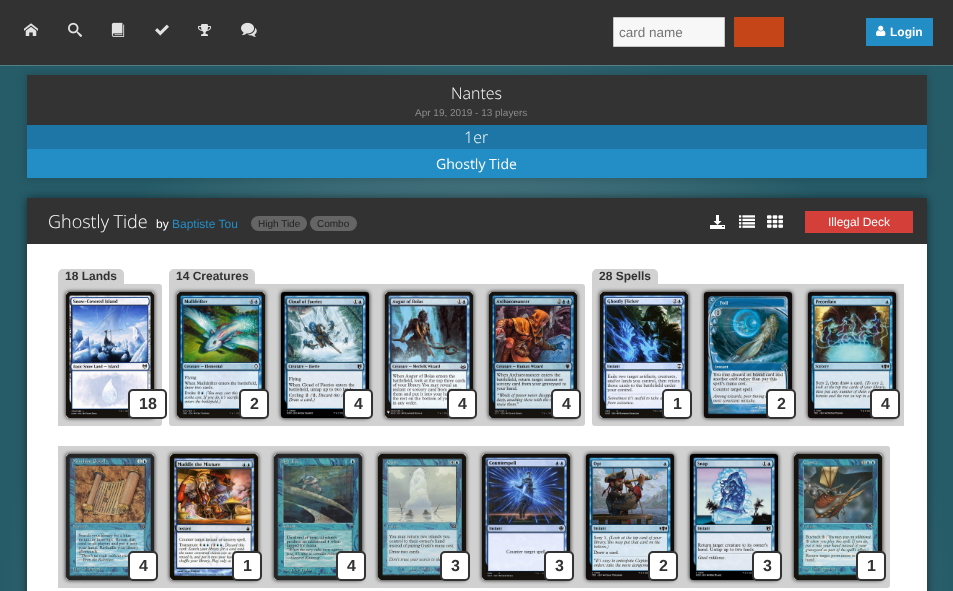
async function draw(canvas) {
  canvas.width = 953
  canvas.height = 591
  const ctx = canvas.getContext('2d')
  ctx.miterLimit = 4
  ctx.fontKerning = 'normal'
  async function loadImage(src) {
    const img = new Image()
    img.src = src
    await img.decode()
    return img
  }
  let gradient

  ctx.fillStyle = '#fff'
  ctx.fillRect(0, 0, 953, 591)
  gradient = ctx.createRadialGradient(477, 477, 0, 477, 477, 477)
  gradient.addColorStop(0, '#7d9da5')
  gradient.addColorStop(1, '#265c68')
  ctx.fillStyle = gradient
  ctx.beginPath()
  ctx.rect(0, 66, 953, 525)
  ctx.save()
  ctx.clip()
  ctx.scale(1, 651 / 477)
  ctx.fillRect(0, 0, 953, 434)
  ctx.restore()
  gradient = ctx.createRadialGradient(477, 477, 0, 477, 477, 477)
  gradient.addColorStop(0, '#97b1b7')
  gradient.addColorStop(1, '#517d86')
  ctx.fillStyle = gradient
  ctx.beginPath()
  ctx.rect(0, 65, 953, 1)
  ctx.save()
  ctx.clip()
  ctx.scale(1, 651 / 477)
  ctx.fillRect(0, 0, 953, 434)
  ctx.restore()
  ctx.fillStyle = '#323232'
  ctx.fillRect(0, 0, 953, 65)
  ctx.drawImage(await loadImage('image0.png'), 24, 23, 14, 13)
  ctx.drawImage(await loadImage('image1.png'), 68, 22, 14, 15)
  ctx.drawImage(await loadImage('image2.png'), 111, 22, 14, 15)
  ctx.drawImage(await loadImage('image3.png'), 155, 24, 14, 12)
  ctx.drawImage(await loadImage('image4.png'), 198, 24, 13, 12)
  ctx.drawImage(await loadImage('image5.png'), 241, 22, 16, 15)
  ctx.fillStyle = '#f7f7f7'
  ctx.beginPath()
  ctx.rect(613.5, 17.5, 111, 29)
  ctx.fill()
  ctx.strokeStyle = '#c6c6c6'
  ctx.stroke()
  ctx.font = '13.5px Liberation Sans'
  ctx.fillStyle = '#757575'
  ctx.fillText('card name', 619, 37)
  ctx.fillStyle = '#c54518'
  ctx.fillRect(734, 17, 50, 30)
  ctx.fillStyle = '#238ec6'
  ctx.fillRect(866, 18, 67, 28)
  ctx.drawImage(await loadImage('image6.png'), 876, 25, 10, 11)
  ctx.font = 'bold 12px Liberation Sans'
  ctx.fillStyle = '#fff'
  ctx.fillText('Login', 890, 36)
  ctx.fillStyle = '#00000033'
  ctx.filter = 'blur(5px)'
  ctx.beginPath()
  ctx.rect(27, 75, 900, 103)
  ctx.fill()
  ctx.filter = 'none'
  ctx.fillStyle = '#333'
  ctx.fillRect(27, 75, 900, 50)
  ctx.font = '300 16px Open Sans'
  ctx.fillStyle = '#fff'
  ctx.fillText('Nantes', 451, 99)
  ctx.font = '10px Liberation Sans'
  ctx.fillStyle = '#8c8c8c'
  ctx.fillText('Apr 19, 2019 - 13 players', 415, 116)
  ctx.fillStyle = '#1d76a5'
  ctx.fillRect(27, 125, 900, 24)
  ctx.font = '300 16px Open Sans'
  ctx.fillStyle = '#fff'
  ctx.fillText('1er', 464, 143)
  ctx.fillStyle = '#238ec6'
  ctx.fillRect(27, 149, 899, 29)
  ctx.fillStyle = '#2083b6'
  ctx.fillRect(926, 149, 1, 29)
  ctx.font = '14px Open Sans'
  ctx.fillStyle = '#fff'
  ctx.fillText('Ghostly Tide', 436, 169)
  ctx.fillStyle = '#00000080'
  ctx.filter = 'blur(5px)'
  ctx.beginPath()
  ctx.roundRect(27, 198, 900, 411, 3)
  ctx.fill()
  ctx.filter = 'none'
  ctx.fillStyle = '#fff'
  ctx.fillRect(27, 244, 900, 347)
  ctx.fillStyle = '#323232'
  ctx.fillRect(27, 198, 900, 46)
  ctx.font = '300 18px Open Sans'
  ctx.fillStyle = '#fff'
  ctx.fillText('Ghostly Tide', 48, 228)
  ctx.font = '12px Liberation Sans'
  ctx.fillText('by', 156, 228)
  ctx.fillStyle = '#238ec6'
  ctx.fillText('Baptiste Tou', 172, 228)
  ctx.fillStyle = '#656565'
  ctx.beginPath()
  ctx.roundRect(251, 216, 56, 15, 7.5)
  ctx.fill()
  ctx.font = '10px Liberation Sans'
  ctx.fillStyle = '#222'
  ctx.fillText('High Tide', 258, 227)
  ctx.fillStyle = '#656565'
  ctx.beginPath()
  ctx.roundRect(310, 216, 47, 15, 7.5)
  ctx.fill()
  ctx.fillStyle = '#222'
  ctx.fillText('Combo', 317, 227)
  ctx.drawImage(await loadImage('image7.png'), 710, 215, 15, 14)
  ctx.drawImage(await loadImage('image8.png'), 739, 215, 16, 13)
  ctx.drawImage(await loadImage('image9.png'), 767, 215, 16, 13)
  ctx.fillStyle = '#d43f3a'
  ctx.fillRect(805, 211, 108, 22)
  ctx.font = '12px Liberation Sans'
  ctx.fillStyle = '#fff'
  ctx.fillText('Illegal Deck', 828, 226)
  ctx.fillStyle = '#d1d1d1'
  ctx.beginPath()
  ctx.roundRect(58, 284, 104, 142, [0, 3, 3, 0])
  ctx.fill()
  ctx.beginPath()
  ctx.roundRect(58, 269, 66, 15, [5, 5, 0, 0])
  ctx.fill()
  ctx.font = 'bold 12px Liberation Sans'
  ctx.fillStyle = '#323232'
  ctx.fillText('18 Lands', 65, 280)
  ctx.fillStyle = '#000'
  ctx.filter = 'blur(2px)'
  ctx.beginPath()
  ctx.roundRect(66, 292, 88, 126, 3)
  ctx.fill()
  ctx.filter = 'none'
  ctx.drawImage(await loadImage('image10.png'), 66, 292, 88, 126)
  ctx.fillStyle = '#fff'
  ctx.beginPath()
  ctx.roundRect(129, 390, 37, 28, 4)
  ctx.fill()
  ctx.strokeStyle = '#323232'
  ctx.lineWidth = 2
  ctx.stroke()
  ctx.font = 'bold 16px Liberation Sans'
  ctx.fillStyle = '#323232'
  ctx.fillText('18', 139, 409)
  ctx.fillStyle = '#d1d1d1'
  ctx.beginPath()
  ctx.roundRect(169, 284, 104, 142, [0, 0, 0, 3])
  ctx.fill()
  ctx.beginPath()
  ctx.roundRect(169, 269, 86, 15, [5, 5, 0, 0])
  ctx.fill()
  ctx.font = 'bold 12px Liberation Sans'
  ctx.fillStyle = '#323232'
  ctx.fillText('14 Creatures', 176, 280)
  ctx.fillStyle = '#000'
  ctx.filter = 'blur(2px)'
  ctx.beginPath()
  ctx.roundRect(177, 292, 88, 126, 3)
  ctx.fill()
  ctx.filter = 'none'
  ctx.drawImage(await loadImage('image11.png'), 177, 292, 88, 126)
  ctx.fillStyle = '#fff'
  ctx.beginPath()
  ctx.roundRect(240, 390, 28, 28, 4)
  ctx.fill()
  ctx.stroke()
  ctx.font = 'bold 16px Liberation Sans'
  ctx.fillStyle = '#323232'
  ctx.fillText('2', 250, 409)
  ctx.fillStyle = '#d1d1d1'
  ctx.fillRect(273, 284, 208, 142)
  ctx.fillStyle = '#000'
  ctx.filter = 'blur(2px)'
  ctx.beginPath()
  ctx.roundRect(281, 292, 88, 126, 3)
  ctx.fill()
  ctx.filter = 'none'
  ctx.drawImage(await loadImage('image12.png'), 281, 292, 88, 126)
  ctx.fillStyle = '#fff'
  ctx.beginPath()
  ctx.roundRect(344, 390, 28, 28, 4)
  ctx.fill()
  ctx.stroke()
  ctx.fillStyle = '#323232'
  ctx.fillText('4', 354, 409)
  ctx.fillStyle = '#000'
  ctx.filter = 'blur(2px)'
  ctx.beginPath()
  ctx.roundRect(385, 292, 88, 126, 3)
  ctx.fill()
  ctx.filter = 'none'
  ctx.drawImage(await loadImage('image13.png'), 385, 292, 88, 126)
  ctx.fillStyle = '#fff'
  ctx.beginPath()
  ctx.roundRect(448, 390, 28, 28, 4)
  ctx.fill()
  ctx.stroke()
  ctx.fillStyle = '#323232'
  ctx.fillText('4', 458, 409)
  ctx.fillStyle = '#d1d1d1'
  ctx.beginPath()
  ctx.roundRect(481, 284, 104, 142, [0, 3, 3, 0])
  ctx.fill()
  ctx.fillStyle = '#000'
  ctx.filter = 'blur(2px)'
  ctx.beginPath()
  ctx.roundRect(489, 292, 88, 126, 3)
  ctx.fill()
  ctx.filter = 'none'
  ctx.drawImage(await loadImage('image14.png'), 489, 292, 88, 126)
  ctx.fillStyle = '#fff'
  ctx.beginPath()
  ctx.roundRect(552, 390, 28, 28, 4)
  ctx.fill()
  ctx.stroke()
  ctx.fillStyle = '#323232'
  ctx.fillText('4', 562, 409)
  ctx.fillStyle = '#d1d1d1'
  ctx.beginPath()
  ctx.roundRect(592, 284, 104, 142, [0, 0, 0, 3])
  ctx.fill()
  ctx.beginPath()
  ctx.roundRect(592, 269, 66, 15, [5, 5, 0, 0])
  ctx.fill()
  ctx.font = 'bold 12px Liberation Sans'
  ctx.fillStyle = '#323232'
  ctx.fillText('28 Spells', 599, 280)
  ctx.fillStyle = '#000'
  ctx.filter = 'blur(2px)'
  ctx.beginPath()
  ctx.roundRect(600, 292, 88, 126, 3)
  ctx.fill()
  ctx.filter = 'none'
  ctx.drawImage(await loadImage('image15.png'), 600, 292, 88, 126)
  ctx.fillStyle = '#fff'
  ctx.beginPath()
  ctx.roundRect(663, 390, 28, 28, 4)
  ctx.fill()
  ctx.stroke()
  ctx.font = 'bold 16px Liberation Sans'
  ctx.fillStyle = '#323232'
  ctx.fillText('1', 673, 409)
  ctx.fillStyle = '#d1d1d1'
  ctx.fillRect(696, 284, 208, 142)
  ctx.fillStyle = '#000'
  ctx.filter = 'blur(2px)'
  ctx.beginPath()
  ctx.roundRect(704, 292, 88, 126, 3)
  ctx.fill()
  ctx.filter = 'none'
  ctx.drawImage(await loadImage('image16.png'), 704, 292, 88, 126)
  ctx.fillStyle = '#fff'
  ctx.beginPath()
  ctx.roundRect(767, 390, 28, 28, 4)
  ctx.fill()
  ctx.stroke()
  ctx.fillStyle = '#323232'
  ctx.fillText('2', 777, 409)
  ctx.fillStyle = '#000'
  ctx.filter = 'blur(2px)'
  ctx.beginPath()
  ctx.roundRect(808, 292, 88, 126, 3)
  ctx.fill()
  ctx.filter = 'none'
  ctx.drawImage(await loadImage('image17.png'), 808, 292, 88, 126)
  ctx.fillStyle = '#fff'
  ctx.beginPath()
  ctx.roundRect(871, 390, 28, 28, 4)
  ctx.fill()
  ctx.stroke()
  ctx.fillStyle = '#323232'
  ctx.fillText('4', 881, 409)
  ctx.fillStyle = '#d1d1d1'
  ctx.fillRect(58, 446, 728, 142)
  ctx.fillStyle = '#000'
  ctx.filter = 'blur(2px)'
  ctx.beginPath()
  ctx.roundRect(66, 454, 88, 126, 3)
  ctx.fill()
  ctx.filter = 'none'
  ctx.drawImage(await loadImage('image18.png'), 66, 454, 88, 126)
  ctx.fillStyle = '#fff'
  ctx.beginPath()
  ctx.roundRect(129, 552, 28, 28, 4)
  ctx.fill()
  ctx.stroke()
  ctx.fillStyle = '#323232'
  ctx.fillText('4', 139, 571)
  ctx.fillStyle = '#000'
  ctx.filter = 'blur(2px)'
  ctx.beginPath()
  ctx.roundRect(170, 454, 88, 126, 3)
  ctx.fill()
  ctx.filter = 'none'
  ctx.drawImage(await loadImage('image19.png'), 170, 454, 88, 126)
  ctx.fillStyle = '#fff'
  ctx.beginPath()
  ctx.roundRect(233, 552, 28, 28, 4)
  ctx.fill()
  ctx.stroke()
  ctx.fillStyle = '#323232'
  ctx.fillText('1', 243, 571)
  ctx.fillStyle = '#000'
  ctx.filter = 'blur(2px)'
  ctx.beginPath()
  ctx.roundRect(274, 454, 88, 126, 3)
  ctx.fill()
  ctx.filter = 'none'
  ctx.drawImage(await loadImage('image20.png'), 274, 454, 88, 126)
  ctx.fillStyle = '#fff'
  ctx.beginPath()
  ctx.roundRect(337, 552, 28, 28, 4)
  ctx.fill()
  ctx.stroke()
  ctx.fillStyle = '#323232'
  ctx.fillText('4', 347, 571)
  ctx.fillStyle = '#000'
  ctx.filter = 'blur(2px)'
  ctx.beginPath()
  ctx.roundRect(378, 454, 88, 126, 3)
  ctx.fill()
  ctx.filter = 'none'
  ctx.drawImage(await loadImage('image21.png'), 378, 454, 88, 126)
  ctx.fillStyle = '#fff'
  ctx.beginPath()
  ctx.roundRect(441, 552, 28, 28, 4)
  ctx.fill()
  ctx.stroke()
  ctx.fillStyle = '#323232'
  ctx.fillText('3', 451, 571)
  ctx.fillStyle = '#000'
  ctx.filter = 'blur(2px)'
  ctx.beginPath()
  ctx.roundRect(482, 454, 88, 126, 3)
  ctx.fill()
  ctx.filter = 'none'
  ctx.drawImage(await loadImage('image22.png'), 482, 454, 88, 126)
  ctx.fillStyle = '#fff'
  ctx.beginPath()
  ctx.roundRect(545, 552, 28, 28, 4)
  ctx.fill()
  ctx.stroke()
  ctx.fillStyle = '#323232'
  ctx.fillText('3', 555, 571)
  ctx.fillStyle = '#000'
  ctx.filter = 'blur(2px)'
  ctx.beginPath()
  ctx.roundRect(586, 454, 88, 126, 3)
  ctx.fill()
  ctx.filter = 'none'
  ctx.drawImage(await loadImage('image23.png'), 586, 454, 88, 126)
  ctx.fillStyle = '#fff'
  ctx.beginPath()
  ctx.roundRect(649, 552, 28, 28, 4)
  ctx.fill()
  ctx.stroke()
  ctx.fillStyle = '#323232'
  ctx.fillText('2', 659, 571)
  ctx.fillStyle = '#000'
  ctx.filter = 'blur(2px)'
  ctx.beginPath()
  ctx.roundRect(690, 454, 88, 126, 3)
  ctx.fill()
  ctx.filter = 'none'
  ctx.drawImage(await loadImage('image24.png'), 690, 454, 88, 126)
  ctx.fillStyle = '#fff'
  ctx.beginPath()
  ctx.roundRect(753, 552, 28, 28, 4)
  ctx.fill()
  ctx.stroke()
  ctx.fillStyle = '#323232'
  ctx.fillText('3', 763, 571)
  ctx.fillStyle = '#d1d1d1'
  ctx.beginPath()
  ctx.roundRect(786, 446, 104, 142, [0, 3, 3, 0])
  ctx.fill()
  ctx.fillStyle = '#000'
  ctx.filter = 'blur(2px)'
  ctx.beginPath()
  ctx.roundRect(794, 454, 88, 126, 3)
  ctx.fill()
  ctx.filter = 'none'
  ctx.drawImage(await loadImage('image25.png'), 794, 454, 88, 126)
  ctx.fillStyle = '#fff'
  ctx.beginPath()
  ctx.roundRect(857, 552, 28, 28, 4)
  ctx.fill()
  ctx.stroke()
  ctx.fillStyle = '#323232'
  ctx.fillText('1', 867, 571)
}

draw(document.querySelector('canvas'))
